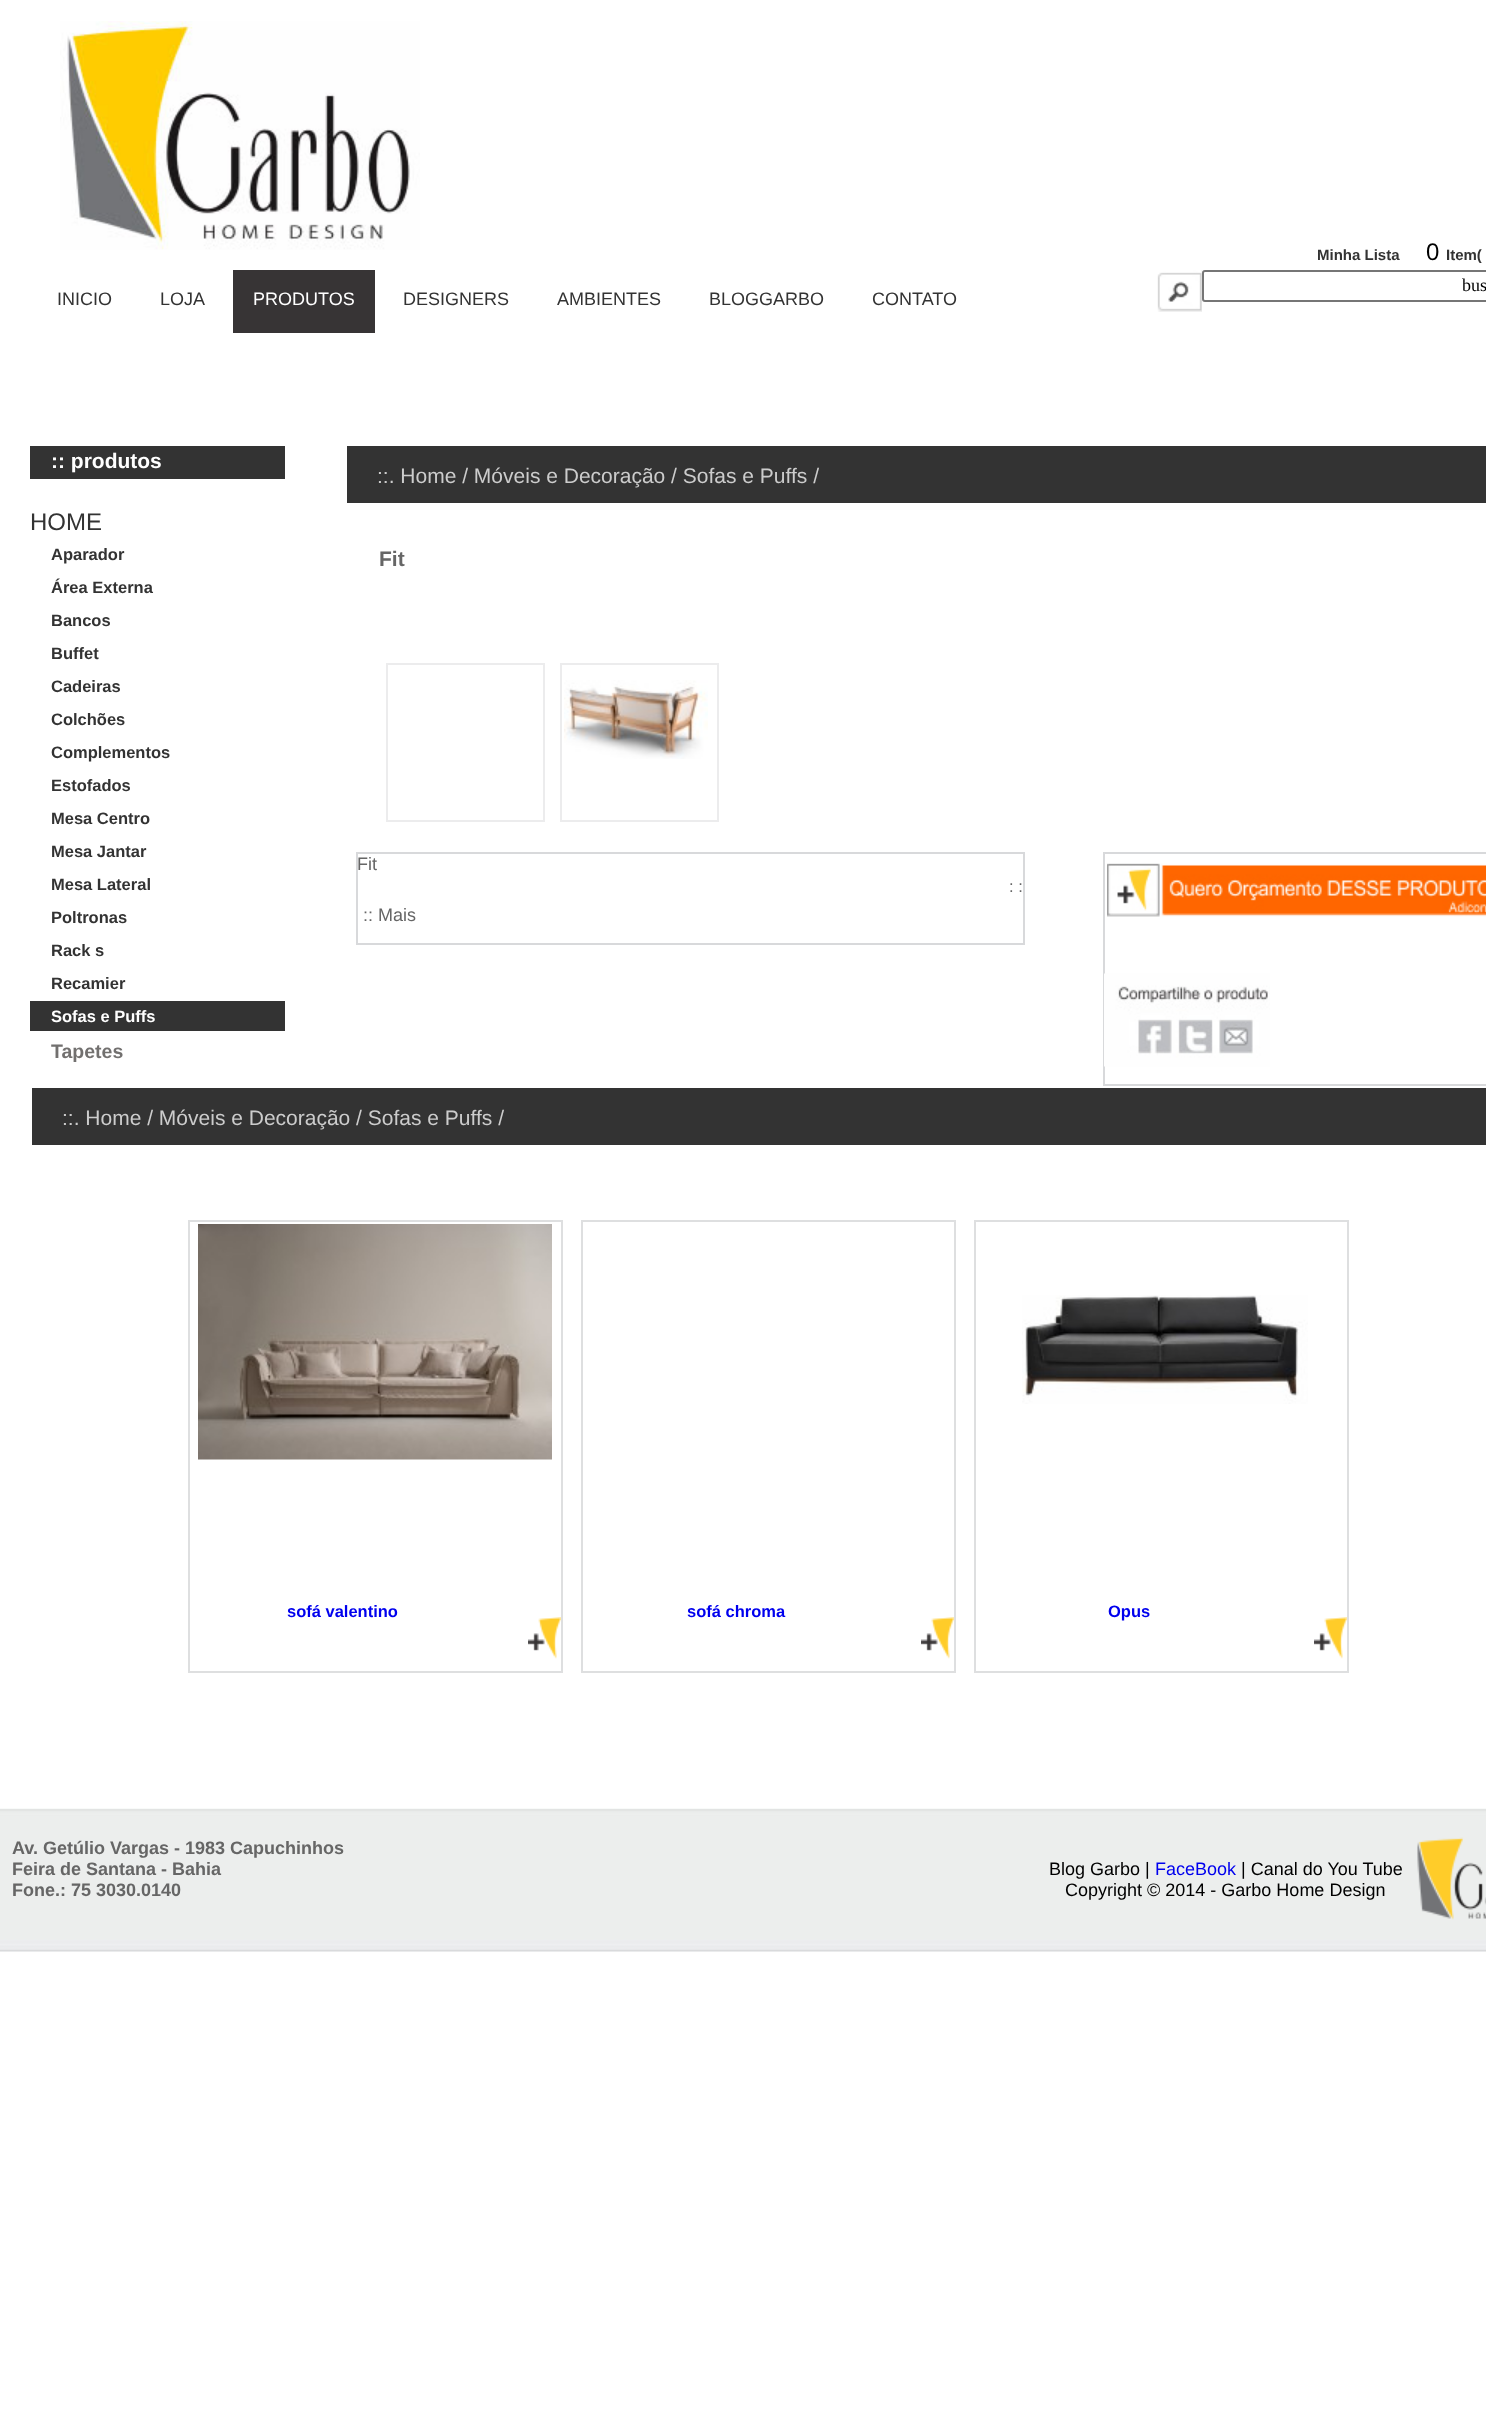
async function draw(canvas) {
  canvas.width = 1486
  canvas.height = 2410
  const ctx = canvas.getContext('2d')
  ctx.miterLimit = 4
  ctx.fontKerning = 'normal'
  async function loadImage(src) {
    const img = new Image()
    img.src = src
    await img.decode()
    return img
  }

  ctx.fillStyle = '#fff'
  ctx.fillRect(0, 0, 1486, 2410)
  ctx.drawImage(await loadImage('image0.png'), 60, 21, 360, 229)
  ctx.font = 'bold 15px Liberation Sans'
  ctx.fillStyle = '#333'
  ctx.fillText('Minha Lista', 1317, 260)
  ctx.font = '24px Liberation Sans'
  ctx.fillStyle = '#000'
  ctx.fillText('0', 1426, 260)
  ctx.font = 'bold 15px Liberation Sans'
  ctx.fillStyle = '#333'
  ctx.fillText('Item(', 1446, 260)
  ctx.fillStyle = '#efefef'
  ctx.fillRect(1201, 270, 1, 42)
  ctx.drawImage(await loadImage('image1.png'), 1157, 270, 45, 42)
  ctx.beginPath()
  ctx.roundRect(1203, 271, 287, 30, 2)
  ctx.strokeStyle = '#767676'
  ctx.lineWidth = 2
  ctx.stroke()
  ctx.font = '18px Liberation Serif'
  ctx.fillStyle = '#000'
  ctx.fillText('bus', 1462, 291)
  ctx.font = '18px Liberation Sans'
  ctx.fillStyle = '#333'
  ctx.fillText('INICIO', 57, 305)
  ctx.fillText('LOJA', 160, 305)
  ctx.fillStyle = '#373435'
  ctx.fillRect(233, 270, 142, 63)
  ctx.fillStyle = '#fff'
  ctx.fillText('PRODUTOS', 253, 305)
  ctx.fillStyle = '#333'
  ctx.fillText('DESIGNERS', 403, 305)
  ctx.fillText('AMBIENTES', 557, 305)
  ctx.fillText('BLOGGARBO', 709, 305)
  ctx.fillText('CONTATO', 872, 305)
  ctx.fillRect(30, 446, 255, 33)
  ctx.font = 'bold 21px Liberation Sans'
  ctx.fillStyle = '#fff'
  ctx.fillText(':: produtos', 51, 468)
  ctx.font = '24px Liberation Sans'
  ctx.fillStyle = '#333'
  ctx.fillText('HOME', 30, 530)
  ctx.font = 'bold 16.5px Liberation Sans'
  ctx.fillText('Aparador', 51, 560)
  ctx.fillText('Área Externa', 51, 593)
  ctx.fillText('Bancos', 51, 626)
  ctx.fillText('Buffet', 51, 659)
  ctx.fillText('Cadeiras', 51, 692)
  ctx.fillText('Colchões', 51, 725)
  ctx.fillText('Complementos', 51, 758)
  ctx.fillText('Estofados', 51, 791)
  ctx.fillText('Mesa Centro', 51, 824)
  ctx.fillText('Mesa Jantar', 51, 857)
  ctx.fillText('Mesa Lateral', 51, 890)
  ctx.fillText('Poltronas', 51, 923)
  ctx.fillText('Rack s', 51, 956)
  ctx.fillText('Recamier', 51, 989)
  ctx.fillRect(30, 1001, 255, 30)
  ctx.fillStyle = '#fff'
  ctx.fillText('Sofas e Puffs', 51, 1022)
  ctx.font = 'bold 19.5px Liberation Sans'
  ctx.fillStyle = '#72706f'
  ctx.fillText('Tapetes', 51, 1058)
  ctx.fillStyle = '#333'
  ctx.fillRect(347, 446, 1139, 57)
  ctx.font = '21px Liberation Sans'
  ctx.fillStyle = '#ccc'
  ctx.fillText('::. Home / Móveis e Decoração / Sofas e Puffs /', 377, 483)
  ctx.font = 'bold 21px Liberation Sans'
  ctx.fillStyle = '#666'
  ctx.fillText('Fit', 379, 566)
  ctx.strokeStyle = '#ececed'
  ctx.strokeRect(387, 664, 157, 157)
  ctx.strokeRect(561, 664, 157, 157)
  ctx.drawImage(await loadImage('image2.png'), 564, 680, 144, 79)
  ctx.strokeStyle = '#d8d9db'
  ctx.strokeRect(357, 853, 667, 91)
  ctx.font = '18px Liberation Sans'
  ctx.fillText('Fit', 357, 870)
  ctx.font = '16.5px Liberation Sans'
  ctx.fillText(': :', 1009, 892)
  ctx.font = '18px Liberation Sans'
  ctx.fillText(':: Mais', 363, 921)
  ctx.strokeRect(1104, 853, 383, 232)
  ctx.drawImage(await loadImage('image3.png'), 1107, 863, 379, 54)
  ctx.drawImage(await loadImage('image4.png'), 1104, 973, 166, 94)
  ctx.fillStyle = '#333'
  ctx.fillRect(32, 1088, 1454, 57)
  ctx.font = '21px Liberation Sans'
  ctx.fillStyle = '#ccc'
  ctx.fillText('::. Home / Móveis e Decoração / Sofas e Puffs /', 62, 1125)
  ctx.strokeStyle = '#dedfe0'
  ctx.strokeRect(189, 1221, 373, 451)
  ctx.drawImage(await loadImage('image5.png'), 198, 1224, 354, 236)
  ctx.font = 'bold 16.5px Liberation Sans'
  ctx.fillStyle = '#00e'
  ctx.fillText('sofá valentino', 287, 1617)
  ctx.drawImage(await loadImage('image6.png'), 528, 1617, 33, 42)
  ctx.strokeRect(582, 1221, 373, 451)
  ctx.fillText('sofá chroma', 687, 1617)
  ctx.drawImage(await loadImage('image7.png'), 921, 1617, 33, 42)
  ctx.strokeRect(975, 1221, 373, 451)
  ctx.drawImage(await loadImage('image8.png'), 1022, 1295, 286, 109)
  ctx.fillText('Opus', 1108, 1617)
  ctx.drawImage(await loadImage('image7.png'), 1314, 1617, 33, 42)
  ctx.drawImage(await loadImage('image9.png'), 0, 1808, 1486, 144)
  ctx.font = 'bold 18px Liberation Sans'
  ctx.fillStyle = '#666'
  ctx.fillText('Av. Getúlio Vargas - 1983 Capuchinhos', 12, 1854)
  ctx.fillText('Feira de Santana - Bahia', 12, 1875)
  ctx.fillText('Fone.: 75 3030.0140', 12, 1896)
  ctx.font = '18px Liberation Sans'
  ctx.fillStyle = '#000'
  ctx.fillText('Blog Garbo |', 1049, 1875)
  ctx.fillStyle = '#00e'
  ctx.fillText('FaceBook', 1155, 1875)
  ctx.fillStyle = '#000'
  ctx.fillText('| Canal do You Tube', 1241, 1875)
  ctx.fillText('Copyright © 2014 - Garbo Home Design', 1065, 1896)
  ctx.drawImage(await loadImage('image10.png'), 1417, 1837, 69, 83)
}

draw(document.querySelector('canvas'))
